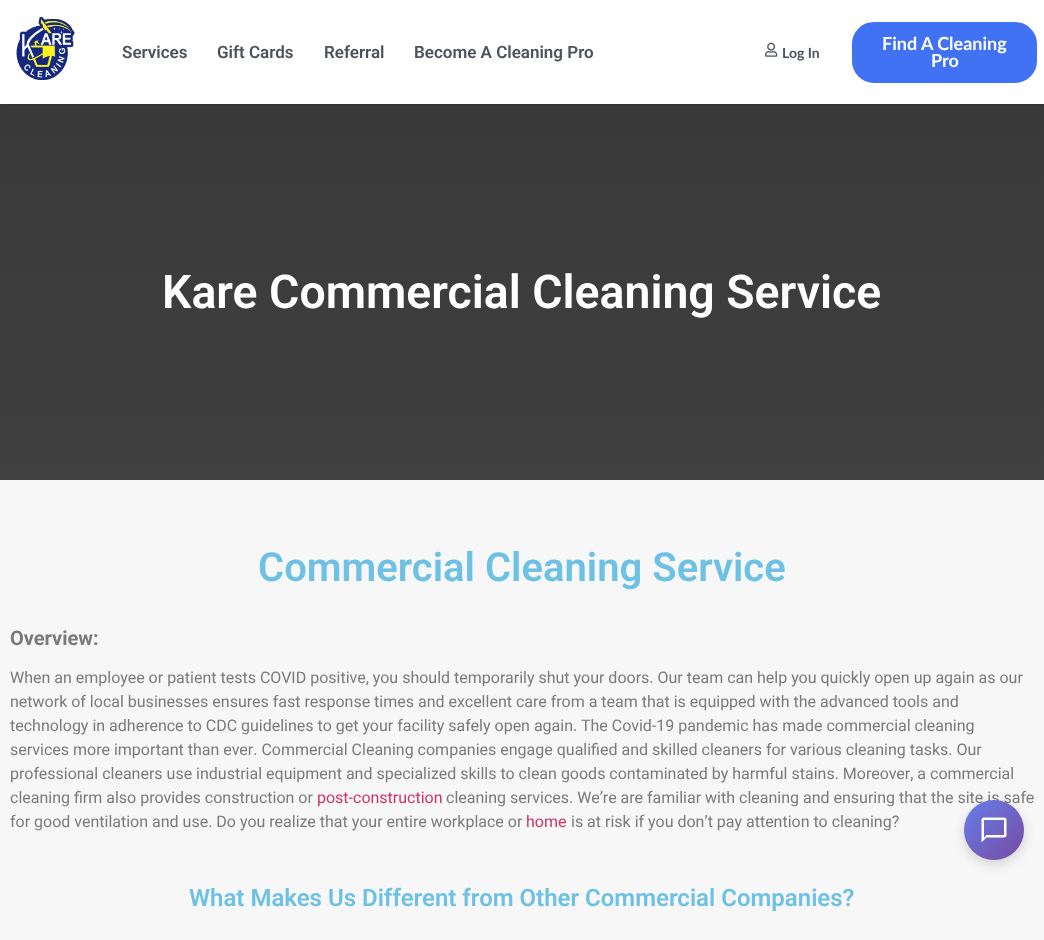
async function draw(canvas) {
  canvas.width = 1044
  canvas.height = 940
  const ctx = canvas.getContext('2d')
  ctx.miterLimit = 4
  ctx.fontKerning = 'normal'
  async function loadImage(src) {
    const img = new Image()
    img.src = src
    await img.decode()
    return img
  }
  let gradient

  ctx.fillStyle = '#f7f7f7'
  ctx.fillRect(0, 0, 1044, 940)
  gradient = ctx.createLinearGradient(522, 104, 522, 480)
  gradient.addColorStop(0, '#393939')
  gradient.addColorStop(1, '#404040')
  ctx.fillStyle = gradient
  ctx.fillRect(0, 104, 1044, 376)
  ctx.fillStyle = '#030c2529'
  ctx.filter = 'blur(1px)'
  ctx.beginPath()
  ctx.rect(0, 1, 1044, 104)
  ctx.fill()
  ctx.filter = 'none'
  ctx.fillStyle = '#fff'
  ctx.fillRect(0, 0, 1044, 104)
  ctx.drawImage(await loadImage('image0.png'), 16, 16, 59, 64)
  ctx.font = '600 17px Roboto'
  ctx.fillStyle = '#4d515c'
  ctx.fillText('Services', 122, 58)
  ctx.fillText('Gift Cards', 217, 58)
  ctx.fillText('Referral', 324, 58)
  ctx.fillText('Become A Cleaning Pro', 414, 58)
  ctx.drawImage(await loadImage('image1.png'), 765, 42, 13, 15)
  ctx.font = 'bold 14px Lato'
  ctx.fillText('Log In', 782, 58)
  ctx.fillStyle = '#4172f3'
  ctx.beginPath()
  ctx.roundRect(853, 23, 183, 59, 21)
  ctx.fill()
  ctx.strokeStyle = '#4172f3'
  ctx.lineWidth = 2
  ctx.stroke()
  ctx.font = 'bold 18px Lato'
  ctx.fillStyle = '#fff'
  ctx.fillText('Find A Cleaning', 882, 50)
  ctx.fillText('Pro', 931, 67)
  ctx.font = '600 46.4px Roboto'
  ctx.fillText('Kare Commercial Cleaning Service', 162, 308)
  ctx.font = '600 40px Roboto'
  ctx.fillStyle = '#6ec1e4'
  ctx.fillText('Commercial Cleaning Service', 258, 581)
  ctx.font = 'bold 20px Roboto'
  ctx.fillStyle = '#7a7a7a'
  ctx.fillText('Overview:', 10, 645)
  ctx.font = '16px Roboto'
  ctx.fillText('When an employee or patient tests COVID positive, you should temporarily shut your doors. Our team can help you quickly open up again as our', 10, 683)
  ctx.fillText('network of local businesses ensures fast response times and excellent care from a team that is equipped with the advanced tools and', 10, 707)
  ctx.fillText('technology in adherence to CDC guidelines to get your facility safely open again. The Covid-19 pandemic has made commercial cleaning', 10, 731)
  ctx.fillText('services more important than ever. Commercial Cleaning companies engage qualified and skilled cleaners for various cleaning tasks. Our', 10, 755)
  ctx.fillText('professional cleaners use industrial equipment and specialized skills to clean goods contaminated by harmful stains. Moreover, a commercial', 10, 779)
  ctx.fillText('cleaning firm also provides construction or', 10, 803)
  ctx.fillStyle = '#c36'
  ctx.fillText('post-construction', 317, 803)
  ctx.fillStyle = '#7a7a7a'
  ctx.fillText('cleaning services. We’re are familiar with cleaning and ensuring that the site is safe', 446, 803)
  ctx.fillText('for good ventilation and use. Do you realize that your entire workplace or', 10, 827)
  ctx.fillStyle = '#c36'
  ctx.fillText('home', 526, 827)
  ctx.fillStyle = '#7a7a7a'
  ctx.fillText('is at risk if you don’t pay attention to cleaning?', 571, 827)
  ctx.font = '600 24px Roboto'
  ctx.fillStyle = '#6ec1e4'
  ctx.fillText('What Makes Us Different from Other Commercial Companies?', 189, 906)
  ctx.fillStyle = '#00000026'
  ctx.filter = 'blur(6px)'
  ctx.beginPath()
  ctx.roundRect(964, 804, 60, 60, 30)
  ctx.fill()
  ctx.filter = 'none'
  gradient = ctx.createLinearGradient(964, 800, 1024, 860)
  gradient.addColorStop(0, '#667eea')
  gradient.addColorStop(1, '#764ba2')
  ctx.fillStyle = gradient
  ctx.beginPath()
  ctx.arc(994, 830, 30, 0, 2 * Math.PI)
  ctx.fill()
  ctx.drawImage(await loadImage('image2.png'), 981, 817, 26, 26)
}

draw(document.querySelector('canvas'))
